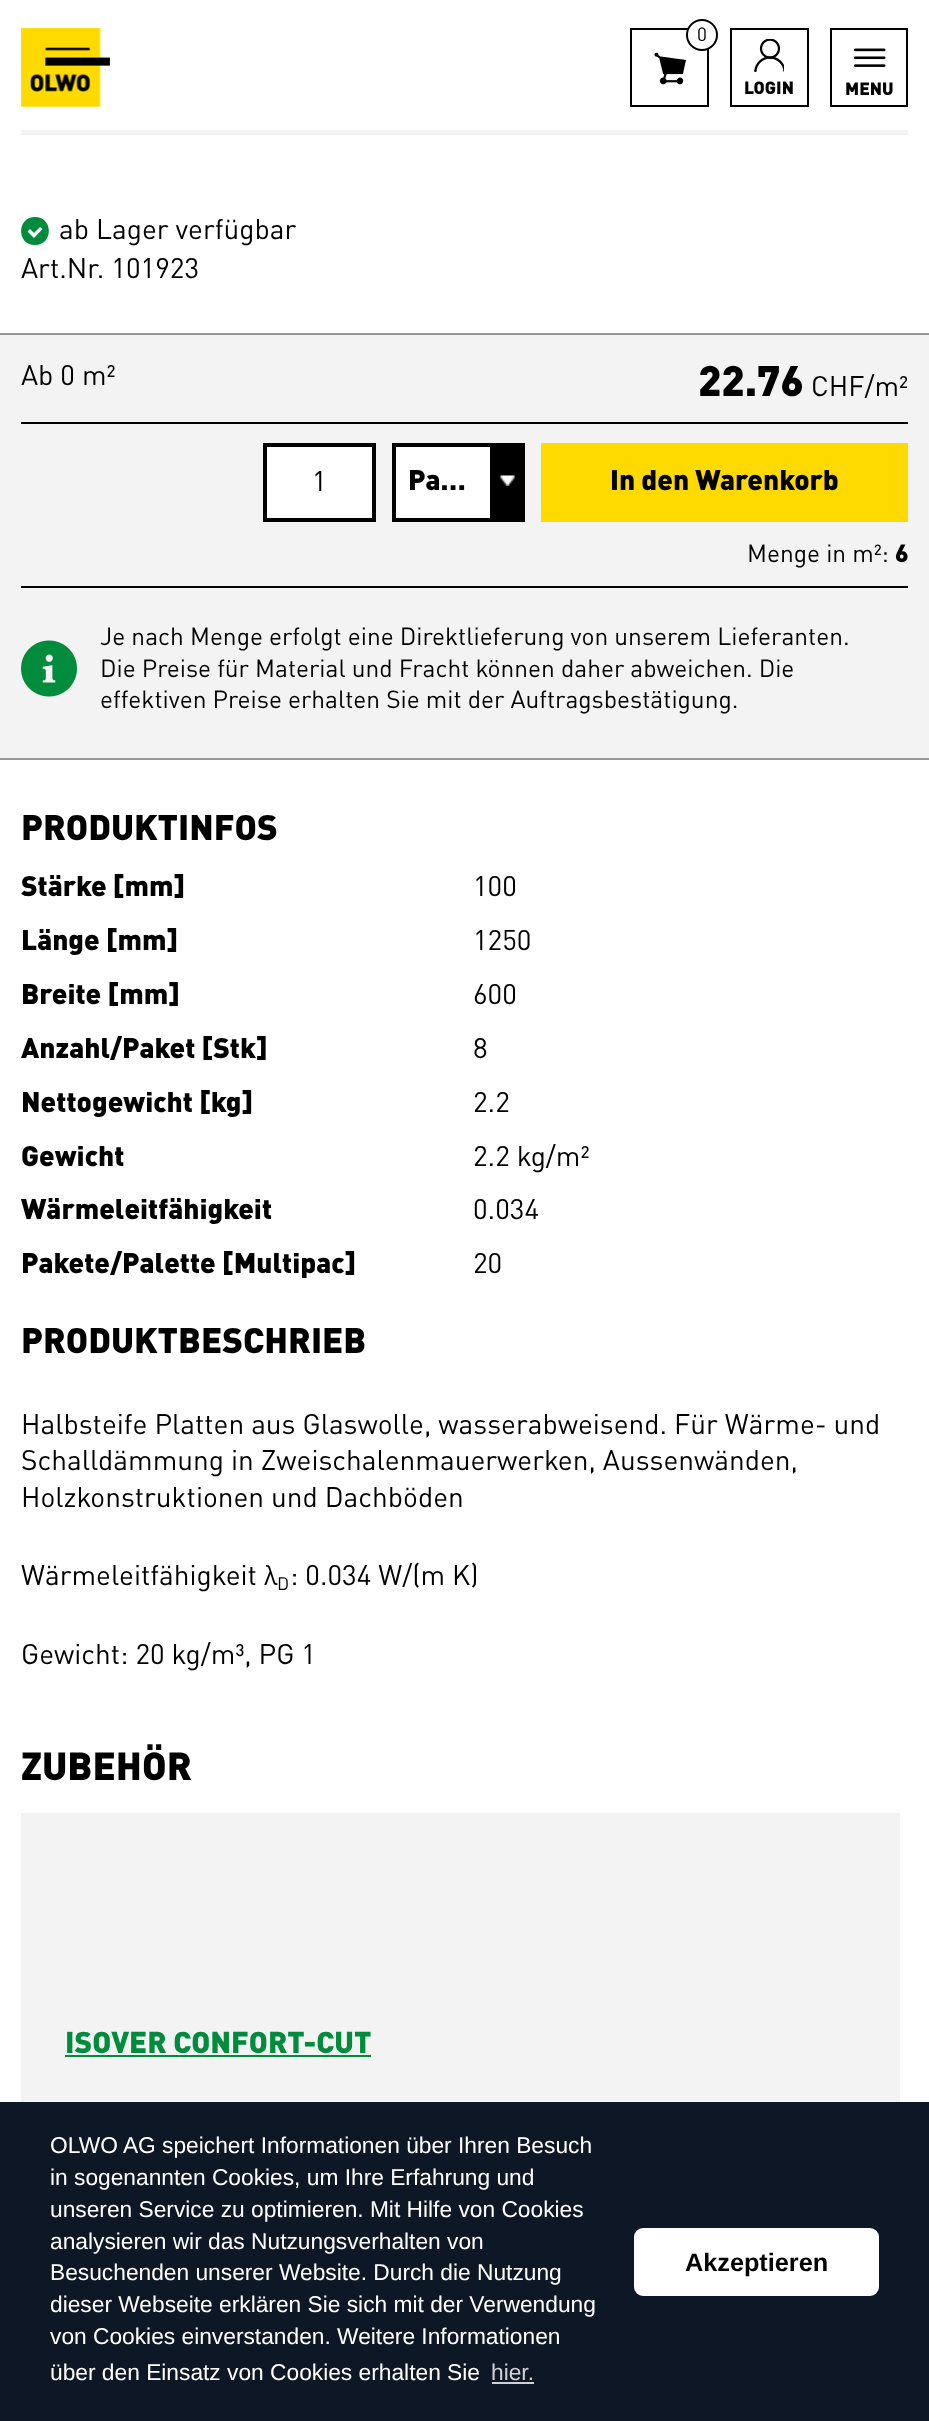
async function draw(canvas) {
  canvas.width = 929
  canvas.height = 2421
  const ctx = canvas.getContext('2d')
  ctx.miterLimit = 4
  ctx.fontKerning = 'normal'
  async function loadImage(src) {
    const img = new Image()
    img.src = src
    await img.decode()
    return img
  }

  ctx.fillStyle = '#fff'
  ctx.fillRect(0, 0, 929, 2421)
  ctx.drawImage(await loadImage('image0.png'), 21, 28, 89, 79)
  ctx.strokeStyle = '#000'
  ctx.lineWidth = 2
  ctx.strokeRect(631, 29, 77, 77)
  ctx.beginPath()
  ctx.arc(702, 35, 15, 0, 2 * Math.PI)
  ctx.fill()
  ctx.stroke()
  ctx.font = '19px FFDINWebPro'
  ctx.fillStyle = '#000'
  ctx.fillText('0', 697, 41)
  ctx.drawImage(await loadImage('image1.png'), 654, 52, 32, 33)
  ctx.strokeRect(731, 29, 77, 77)
  ctx.drawImage(await loadImage('image2.png'), 754, 39, 30, 33)
  ctx.font = '17.5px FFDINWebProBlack'
  ctx.fillText('LOGIN', 744, 94)
  ctx.strokeRect(831, 29, 76, 77)
  ctx.drawImage(await loadImage('image3.png'), 854, 48, 32, 19)
  ctx.fillText('MENU', 845, 95)
  ctx.fillStyle = '#f3f3f3'
  ctx.fillRect(21, 130, 887, 5)
  ctx.fillStyle = '#008b3d'
  ctx.beginPath()
  ctx.moveTo(35, 217)
  ctx.bezierCurveTo(16.5, 217, 16.5, 245, 35, 245)
  ctx.bezierCurveTo(53.5, 245, 53.5, 217, 35, 217)
  ctx.closePath()
  ctx.moveTo(34, 238)
  ctx.lineTo(27.5, 231.5)
  ctx.lineTo(30, 229)
  ctx.lineTo(34, 233)
  ctx.lineTo(40, 227)
  ctx.lineTo(42.5, 229)
  ctx.closePath()
  ctx.fill()
  ctx.font = '28px FFDINWebPro'
  ctx.fillStyle = '#000'
  ctx.fillText('ab Lager verfügbar', 59, 239)
  ctx.fillText('Art.Nr. 101923', 21, 278)
  ctx.fillStyle = '#f3f3f3'
  ctx.fillRect(0, 335, 929, 423)
  ctx.fillStyle = '#979797'
  ctx.fillRect(0, 333, 929, 2)
  ctx.fillRect(0, 758, 929, 2)
  ctx.fillStyle = '#000'
  ctx.fillText('Ab 0 m²', 21, 385)
  ctx.font = '42px FFDINWebProBlack'
  ctx.fillText('22.76', 698, 396)
  ctx.font = '28px FFDINWebPro'
  ctx.fillText('CHF/m²', 811, 396)
  ctx.fillRect(21, 422, 887, 2)
  ctx.fillStyle = '#fff'
  ctx.beginPath()
  ctx.rect(265, 445, 109, 75)
  ctx.fill()
  ctx.lineWidth = 4
  ctx.stroke()
  ctx.fillStyle = '#000'
  ctx.fillText('1', 312, 491)
  ctx.fillStyle = '#fff'
  ctx.fillRect(396, 447, 94, 71)
  ctx.fillStyle = '#000'
  ctx.fillRect(392, 443, 98, 4)
  ctx.fillRect(490, 443, 35, 75)
  ctx.fillRect(392, 518, 133, 4)
  ctx.fillRect(392, 443, 4, 79)
  ctx.font = '28px FFDINWebProBlack'
  ctx.fillText('Pa…', 408, 490)
  ctx.drawImage(await loadImage('image4.png'), 500, 475, 15, 11)
  ctx.fillStyle = '#ffda00'
  ctx.fillRect(541, 443, 367, 79)
  ctx.fillStyle = '#000'
  ctx.fillText('In den Warenkorb', 610, 490)
  ctx.font = '24.5px FFDINWebPro'
  ctx.fillText('Menge in m²:', 747, 562)
  ctx.font = '24.5px FFDINWebProBlack'
  ctx.fillText('6', 895, 562)
  ctx.fillRect(21, 586, 887, 2)
  ctx.drawImage(await loadImage('image5.png'), 21, 640, 56, 57)
  ctx.font = '24.5px FFDINWebPro'
  ctx.fillText('Je nach Menge erfolgt eine Direktlieferung von unserem Lieferanten.', 100, 645)
  ctx.fillText('Die Preise für Material und Fracht können daher abweichen. Die', 100, 677)
  ctx.fillText('effektiven Preise erhalten Sie mit der Auftragsbestätigung.', 100, 708)
  ctx.font = '35px FFDINWebProBlack'
  ctx.fillText('PRODUKTINFOS', 21, 840)
  ctx.font = '28px FFDINWebProBlack'
  ctx.fillText('Stärke [mm]', 21, 896)
  ctx.font = '28px FFDINWebPro'
  ctx.fillText('100', 473, 896)
  ctx.font = '28px FFDINWebProBlack'
  ctx.fillText('Länge [mm]', 21, 950)
  ctx.font = '28px FFDINWebPro'
  ctx.fillText('1250', 473, 950)
  ctx.font = '28px FFDINWebProBlack'
  ctx.fillText('Breite [mm]', 21, 1004)
  ctx.font = '28px FFDINWebPro'
  ctx.fillText('600', 473, 1004)
  ctx.font = '28px FFDINWebProBlack'
  ctx.fillText('Anzahl/Paket [Stk]', 21, 1058)
  ctx.font = '28px FFDINWebPro'
  ctx.fillText('8', 473, 1058)
  ctx.font = '28px FFDINWebProBlack'
  ctx.fillText('Nettogewicht [kg]', 21, 1112)
  ctx.font = '28px FFDINWebPro'
  ctx.fillText('2.2', 473, 1112)
  ctx.font = '28px FFDINWebProBlack'
  ctx.fillText('Gewicht', 21, 1166)
  ctx.font = '28px FFDINWebPro'
  ctx.fillText('2.2 kg/m²', 473, 1166)
  ctx.font = '28px FFDINWebProBlack'
  ctx.fillText('Wärmeleitfähigkeit', 21, 1219)
  ctx.font = '28px FFDINWebPro'
  ctx.fillText('0.034', 473, 1219)
  ctx.font = '28px FFDINWebProBlack'
  ctx.fillText('Pakete/Palette [Multipac]', 21, 1273)
  ctx.font = '28px FFDINWebPro'
  ctx.fillText('20', 473, 1273)
  ctx.font = '35px FFDINWebProBlack'
  ctx.fillText('PRODUKTBESCHRIEB', 21, 1353)
  ctx.font = '28px FFDINWebPro'
  ctx.fillText('Halbsteife Platten aus Glaswolle, wasserabweisend. Für Wärme- und', 21, 1434)
  ctx.fillText('Schalldämmung in Zweischalenmauerwerken, Aussenwänden,', 21, 1470)
  ctx.fillText('Holzkonstruktionen und Dachböden', 21, 1507)
  ctx.fillText('Wärmeleitfähigkeit λ', 21, 1585)
  ctx.font = '18px FFDINWebPro'
  ctx.fillText('D', 277, 1590)
  ctx.font = '28px FFDINWebPro'
  ctx.fillText(': 0.034 W/(m K)', 290, 1585)
  ctx.fillText('Gewicht: 20 kg/m³, PG 1', 21, 1664)
  ctx.font = '38.5px FFDINWebProBlack'
  ctx.fillText('ZUBEHÖR', 21, 1780)
  ctx.fillStyle = '#f3f3f3'
  ctx.fillRect(21, 1813, 879, 289)
  ctx.font = '29.75px FFDINWebProBlack'
  ctx.fillStyle = '#008b3d'
  ctx.fillText('ISOVER CONFORT-CUT', 65, 2053)
  ctx.fillRect(65, 2055, 306, 2)
  ctx.fillStyle = '#0e1726'
  ctx.fillRect(0, 2102, 929, 319)
  ctx.font = '22.75px Liberation Sans'
  ctx.fillStyle = '#fff'
  ctx.fillText('OLWO AG speichert Informationen über Ihren Besuch', 50, 2153)
  ctx.fillText('in sogenannten Cookies, um Ihre Erfahrung und', 50, 2185)
  ctx.fillText('unseren Service zu optimieren. Mit Hilfe von Cookies', 50, 2217)
  ctx.fillText('analysieren wir das Nutzungsverhalten von', 50, 2249)
  ctx.fillText('Besuchenden unserer Website. Durch die Nutzung', 50, 2280)
  ctx.fillText('dieser Webseite erklären Sie sich mit der Verwendung', 50, 2312)
  ctx.fillText('von Cookies einverstanden. Weitere Informationen', 50, 2344)
  ctx.fillText('über den Einsatz von Cookies erhalten Sie', 50, 2380)
  ctx.fillStyle = '#cfd1d4'
  ctx.fillText('hier.', 491, 2380)
  ctx.fillRect(492, 2382, 42, 2)
  ctx.fillStyle = '#fff'
  ctx.beginPath()
  ctx.roundRect(634, 2228, 245, 68, 9)
  ctx.fill()
  ctx.font = 'bold 25.25px Liberation Sans'
  ctx.fillStyle = '#000'
  ctx.fillText('Akzeptieren', 685, 2271)
}

draw(document.querySelector('canvas'))
